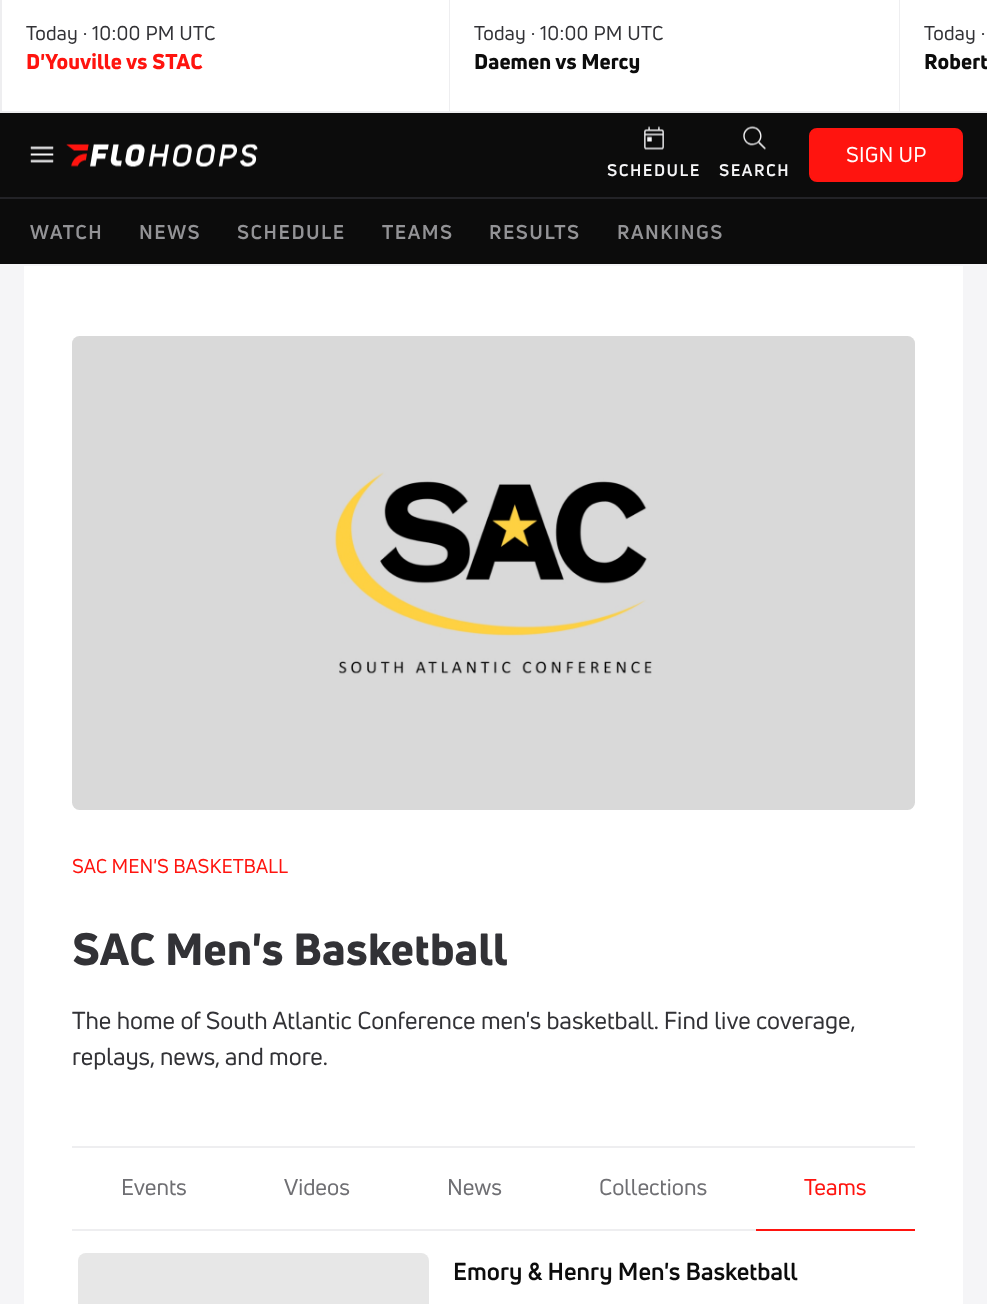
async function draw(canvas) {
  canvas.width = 987
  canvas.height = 1304
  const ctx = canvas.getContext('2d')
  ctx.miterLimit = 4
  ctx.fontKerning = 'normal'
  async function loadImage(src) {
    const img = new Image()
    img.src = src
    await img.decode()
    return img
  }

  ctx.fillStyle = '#f5f5f7'
  ctx.fillRect(0, 0, 987, 1304)
  ctx.fillStyle = '#eeeef0'
  ctx.fillRect(0, 111, 987, 2)
  ctx.fillStyle = '#fff'
  ctx.fillRect(2, 0, 447, 111)
  ctx.fillStyle = '#eeeef0'
  ctx.fillRect(449, 0, 1, 111)
  ctx.fillRect(0, 0, 2, 111)
  ctx.letterSpacing = '0.25px'
  ctx.font = '19.5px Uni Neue'
  ctx.fillStyle = '#323236'
  ctx.fillText('Today · 10:00 PM UTC', 26, 40)
  ctx.letterSpacing = '0.1px'
  ctx.font = '900 21px Uni Neue'
  ctx.fillStyle = '#ff140f'
  ctx.fillText('D\'Youville vs STAC', 26, 69)
  ctx.fillStyle = '#fff'
  ctx.fillRect(450, 0, 449, 111)
  ctx.fillStyle = '#eeeef0'
  ctx.fillRect(899, 0, 1, 111)
  ctx.letterSpacing = '0.25px'
  ctx.font = '19.5px Uni Neue'
  ctx.fillStyle = '#323236'
  ctx.fillText('Today · 10:00 PM UTC', 474, 40)
  ctx.letterSpacing = '0.1px'
  ctx.font = '900 21px Uni Neue'
  ctx.fillStyle = '#0c0c0c'
  ctx.fillText('Daemen vs Mercy', 474, 69)
  ctx.fillStyle = '#fff'
  ctx.fillRect(900, 0, 87, 111)
  ctx.letterSpacing = '0.25px'
  ctx.font = '19.5px Uni Neue'
  ctx.fillStyle = '#323236'
  ctx.fillText('Today ·', 924, 40)
  ctx.letterSpacing = '0.1px'
  ctx.font = '900 21px Uni Neue'
  ctx.fillStyle = '#0c0c0c'
  ctx.fillText('Robert', 924, 69)
  ctx.fillRect(0, 113, 987, 151)
  ctx.drawImage(await loadImage('image0.png'), 30, 146, 24, 17)
  ctx.drawImage(await loadImage('image1.png'), 66, 143, 192, 24)
  ctx.fillStyle = '#ff140f'
  ctx.beginPath()
  ctx.roundRect(810, 129, 152, 52, 7)
  ctx.fill()
  ctx.strokeStyle = '#ff140f'
  ctx.lineWidth = 2
  ctx.stroke()
  ctx.letterSpacing = '0.25px'
  ctx.font = '21px Uni Neue'
  ctx.fillStyle = '#fff'
  ctx.fillText('SIGN UP', 846, 162)
  ctx.drawImage(await loadImage('image2.png'), 644, 126, 20, 24)
  ctx.letterSpacing = '1.5px'
  ctx.font = 'bold 16.5px Uni Neue'
  ctx.fillStyle = '#f5f5f7'
  ctx.fillText('SCHEDULE', 607, 176)
  ctx.drawImage(await loadImage('image3.png'), 743, 126, 23, 24)
  ctx.fillText('SEARCH', 719, 176)
  ctx.fillStyle = '#232327'
  ctx.fillRect(0, 197, 987, 2)
  ctx.font = 'bold 19.5px Uni Neue'
  ctx.fillStyle = '#939396'
  ctx.fillText('WATCH', 30, 239)
  ctx.fillText('NEWS', 139, 239)
  ctx.fillText('SCHEDULE', 237, 239)
  ctx.fillText('TEAMS', 382, 239)
  ctx.fillText('RESULTS', 489, 239)
  ctx.fillText('RANKINGS', 617, 239)
  ctx.fillStyle = '#fff'
  ctx.fillRect(24, 266, 939, 1038)
  ctx.drawImage(await loadImage('image4.png'), 72, 336, 843, 474)
  ctx.letterSpacing = '0px'
  ctx.font = '19.5px Uni Neue'
  ctx.fillStyle = '#ff140f'
  ctx.fillText('SAC MEN\'S BASKETBALL', 72, 873)
  ctx.letterSpacing = '0.3px'
  ctx.font = '900 44.25px Uni Neue'
  ctx.fillStyle = '#323236'
  ctx.fillText('SAC Men\'s Basketball', 72, 965)
  ctx.letterSpacing = '0px'
  ctx.font = '24px Uni Neue'
  ctx.fillText('The home of South Atlantic Conference men\'s basketball. Find live coverage,', 72, 1029)
  ctx.fillText('replays, news, and more.', 72, 1065)
  ctx.fillStyle = '#eeeef0'
  ctx.fillRect(72, 1146, 843, 2)
  ctx.fillRect(72, 1229, 684, 2)
  ctx.font = '22.5px Uni Neue'
  ctx.fillStyle = '#6f6f73'
  ctx.fillText('Events', 121, 1195)
  ctx.fillText('Videos', 284, 1195)
  ctx.fillText('News', 447, 1195)
  ctx.fillText('Collections', 599, 1195)
  ctx.fillStyle = '#ff140f'
  ctx.fillRect(756, 1229, 159, 2)
  ctx.fillText('Teams', 804, 1195)
  ctx.fillStyle = '#e7e7e7'
  ctx.beginPath()
  ctx.roundRect(78, 1253, 351, 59, 8)
  ctx.fill()
  ctx.font = 'bold 24px Uni Neue'
  ctx.fillStyle = '#0c0c0c'
  ctx.fillText('Emory & Henry Men\'s Basketball', 453, 1280)
}

draw(document.querySelector('canvas'))
